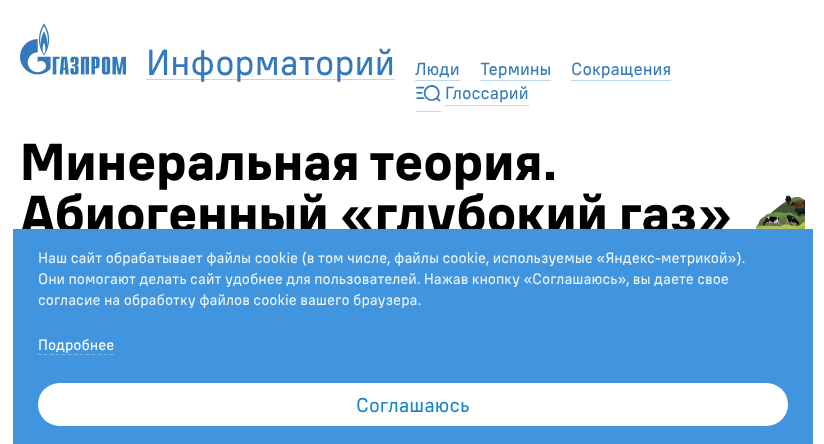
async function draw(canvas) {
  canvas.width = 824
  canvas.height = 444
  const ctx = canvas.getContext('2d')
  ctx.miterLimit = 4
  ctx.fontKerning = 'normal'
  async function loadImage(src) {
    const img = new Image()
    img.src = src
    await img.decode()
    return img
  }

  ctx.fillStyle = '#fff'
  ctx.fillRect(0, 0, 824, 444)
  ctx.drawImage(await loadImage('image0.png'), 20, 23, 106, 52)
  ctx.fillStyle = '#c2d7eb'
  ctx.fillRect(146, 79, 249, 1)
  ctx.font = '35.75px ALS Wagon'
  ctx.fillStyle = '#3379bc'
  ctx.fillText('Информаторий', 146, 75)
  ctx.font = '17.5px ALS Wagon'
  ctx.fillText('Люди', 415, 75)
  ctx.fillStyle = '#c2d7eb'
  ctx.fillRect(415, 80, 45, 1)
  ctx.fillStyle = '#3379bc'
  ctx.fillText('Термины', 480, 75)
  ctx.fillStyle = '#c2d7eb'
  ctx.fillRect(480, 80, 71, 1)
  ctx.fillStyle = '#3379bc'
  ctx.fillText('Сокращения', 571, 75)
  ctx.fillStyle = '#c2d7eb'
  ctx.fillRect(571, 80, 100, 1)
  ctx.fillRect(416, 111, 25, 1)
  ctx.fillRect(445, 105, 84, 1)
  ctx.drawImage(await loadImage('image1.png'), 416, 85, 25, 17)
  ctx.fillStyle = '#3379bc'
  ctx.fillText('Глоссарий', 445, 99)
  ctx.wordSpacing = '-2px'
  ctx.font = 'bold 51.5px ALS Wagon'
  ctx.fillStyle = '#000'
  ctx.fillText('Минеральная теория.', 20, 180)
  ctx.wordSpacing = '0px'
  ctx.fillText('Абиогенный «глубокий газ»', 20, 232)
  ctx.drawImage(await loadImage('image2.png'), 756, 195, 49, 34)
  ctx.fillStyle = '#4195df'
  ctx.fillRect(13, 229, 800, 215)
  ctx.font = '15px ALS Wagon'
  ctx.fillStyle = '#ecf4fc'
  ctx.fillText('Наш сайт обрабатывает файлы cookie (в том числе, файлы cookie, используемые «Яндекс-метрикой»).', 38, 263)
  ctx.fillText('Они помогают делать сайт удобнее для пользователей. Нажав кнопку «Соглашаюсь», вы даете свое', 38, 284)
  ctx.fillText('согласие на обработку файлов cookie вашего браузера.', 38, 305)
  ctx.fillStyle = '#fff'
  ctx.fillText('Подробнее', 38, 350)
  ctx.beginPath()
  ctx.moveTo(37.5, 354.5)
  ctx.lineTo(114, 354.5)
  ctx.strokeStyle = '#7ab5e9'
  ctx.lineWidth = 1.2
  ctx.setLineDash([3.75, 2.29])
  ctx.stroke()
  ctx.beginPath()
  ctx.roundRect(38, 383, 750, 43, 21.5)
  ctx.fill()
  ctx.font = '20px ALS Wagon'
  ctx.fillStyle = '#1a85cd'
  ctx.fillText('Соглашаюсь', 356, 412)
}

draw(document.querySelector('canvas'))
